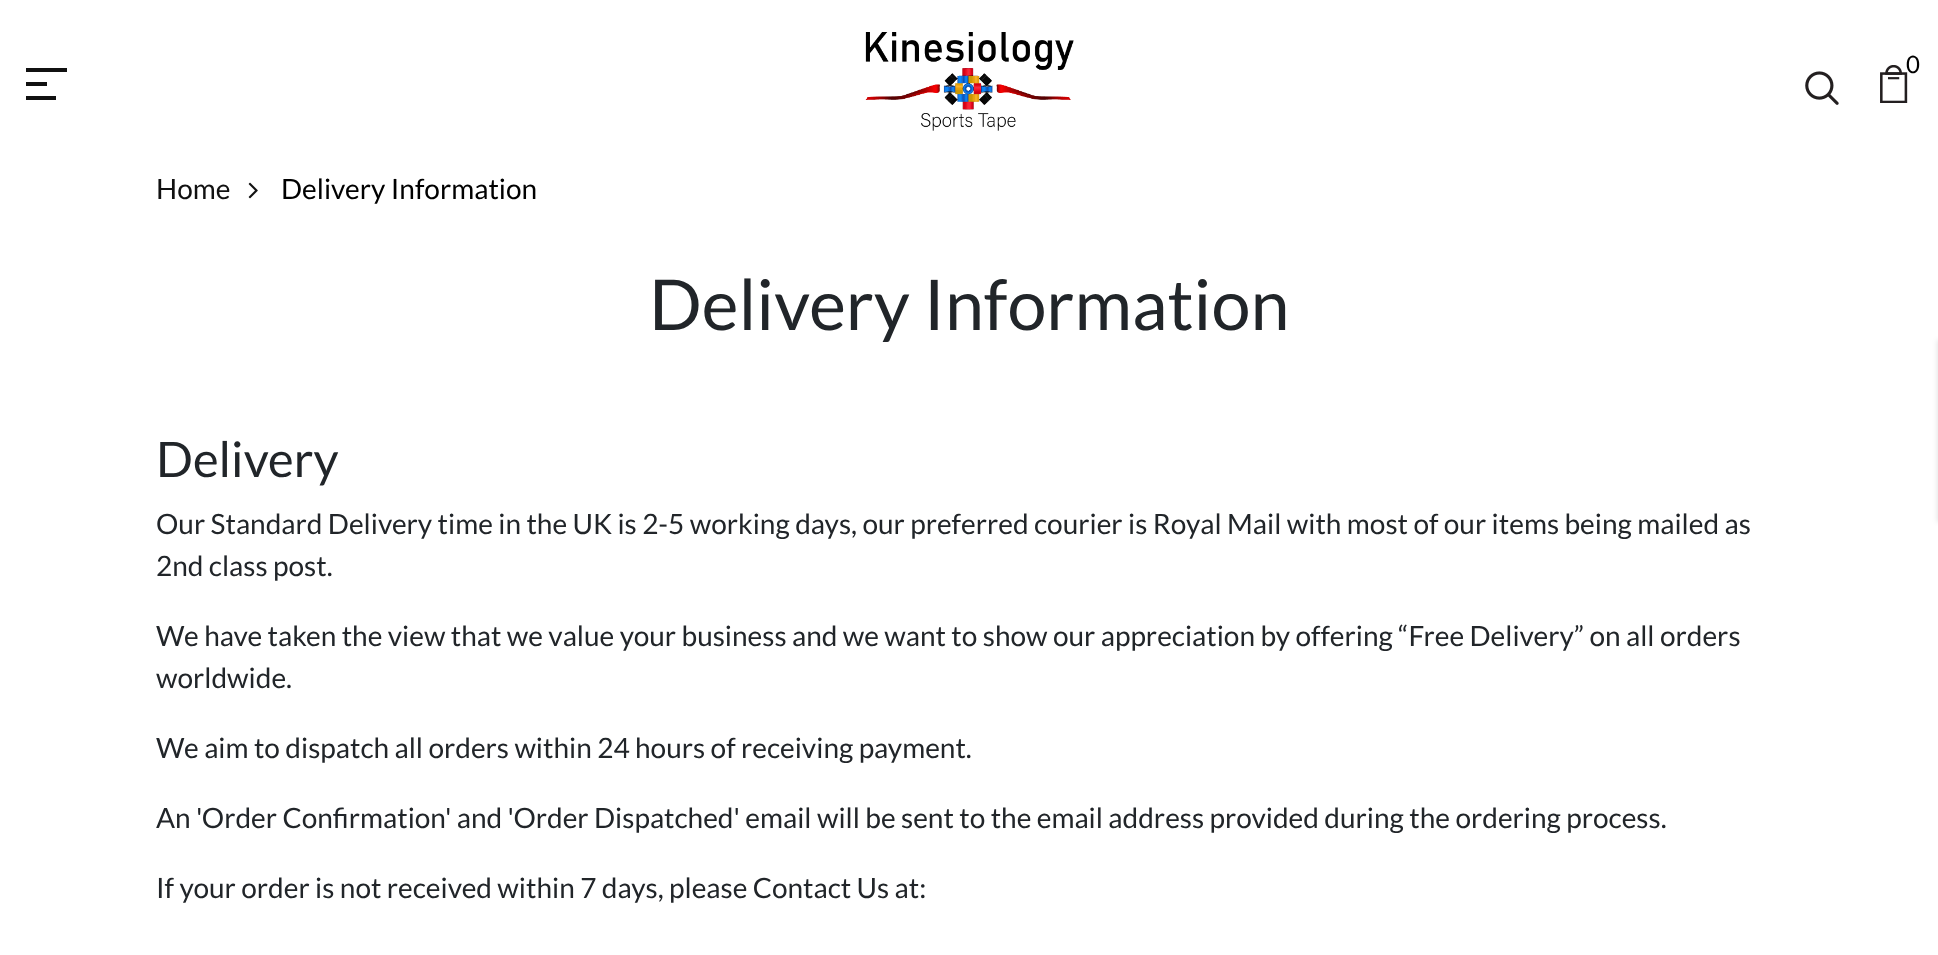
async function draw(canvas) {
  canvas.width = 1938
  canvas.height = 955
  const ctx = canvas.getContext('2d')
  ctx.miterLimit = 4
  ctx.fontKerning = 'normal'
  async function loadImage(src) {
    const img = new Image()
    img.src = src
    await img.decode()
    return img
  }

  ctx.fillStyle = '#fff'
  ctx.fillRect(0, 0, 1938, 955)
  ctx.drawImage(await loadImage('image0.png'), 865, 32, 209, 99)
  ctx.drawImage(await loadImage('image1.png'), 1880, 65, 28, 38)
  ctx.font = '24px Lato'
  ctx.fillStyle = '#000'
  ctx.fillText('0', 1906, 73)
  ctx.drawImage(await loadImage('image2.png'), 1805, 71, 34, 34)
  ctx.fillStyle = '#111'
  ctx.fillRect(26, 68, 41, 4)
  ctx.fillRect(26, 82, 21, 4)
  ctx.fillRect(26, 96, 30, 4)
  ctx.font = '28px Lato'
  ctx.fillText('Home', 156, 199)
  ctx.drawImage(await loadImage('image3.png'), 248, 182, 10, 17)
  ctx.fillStyle = '#000'
  ctx.fillText('Delivery Information', 281, 199)
  ctx.font = '70px Lato'
  ctx.fillStyle = '#212529'
  ctx.fillText('Delivery Information', 649, 330)
  ctx.font = '49px Lato'
  ctx.fillText('Delivery', 156, 477)
  ctx.font = '28px Lato'
  ctx.fillText('Our Standard Delivery time in the UK is 2-5 working days, our preferred courier is Royal Mail with most of our items being mailed as', 156, 534)
  ctx.fillText('2nd class post.', 156, 576)
  ctx.fillText('We have taken the view that we value your business and we want to show our appreciation by offering “Free Delivery” on all orders', 156, 646)
  ctx.fillText('worldwide.', 156, 688)
  ctx.fillText('We aim to dispatch all orders within 24 hours of receiving payment.', 156, 758)
  ctx.fillText('An \'Order Confirmation\' and \'Order Dispatched\' email will be sent to the email address provided during the ordering process.', 156, 828)
  ctx.fillText('If your order is not received within 7 days, please Contact Us at:', 156, 898)
  ctx.fillStyle = '#0000001a'
  ctx.filter = 'blur(2.5px)'
  ctx.beginPath()
  ctx.rect(1937, 340, 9, 182)
  ctx.fill()
  ctx.filter = 'none'
}

draw(document.querySelector('canvas'))
